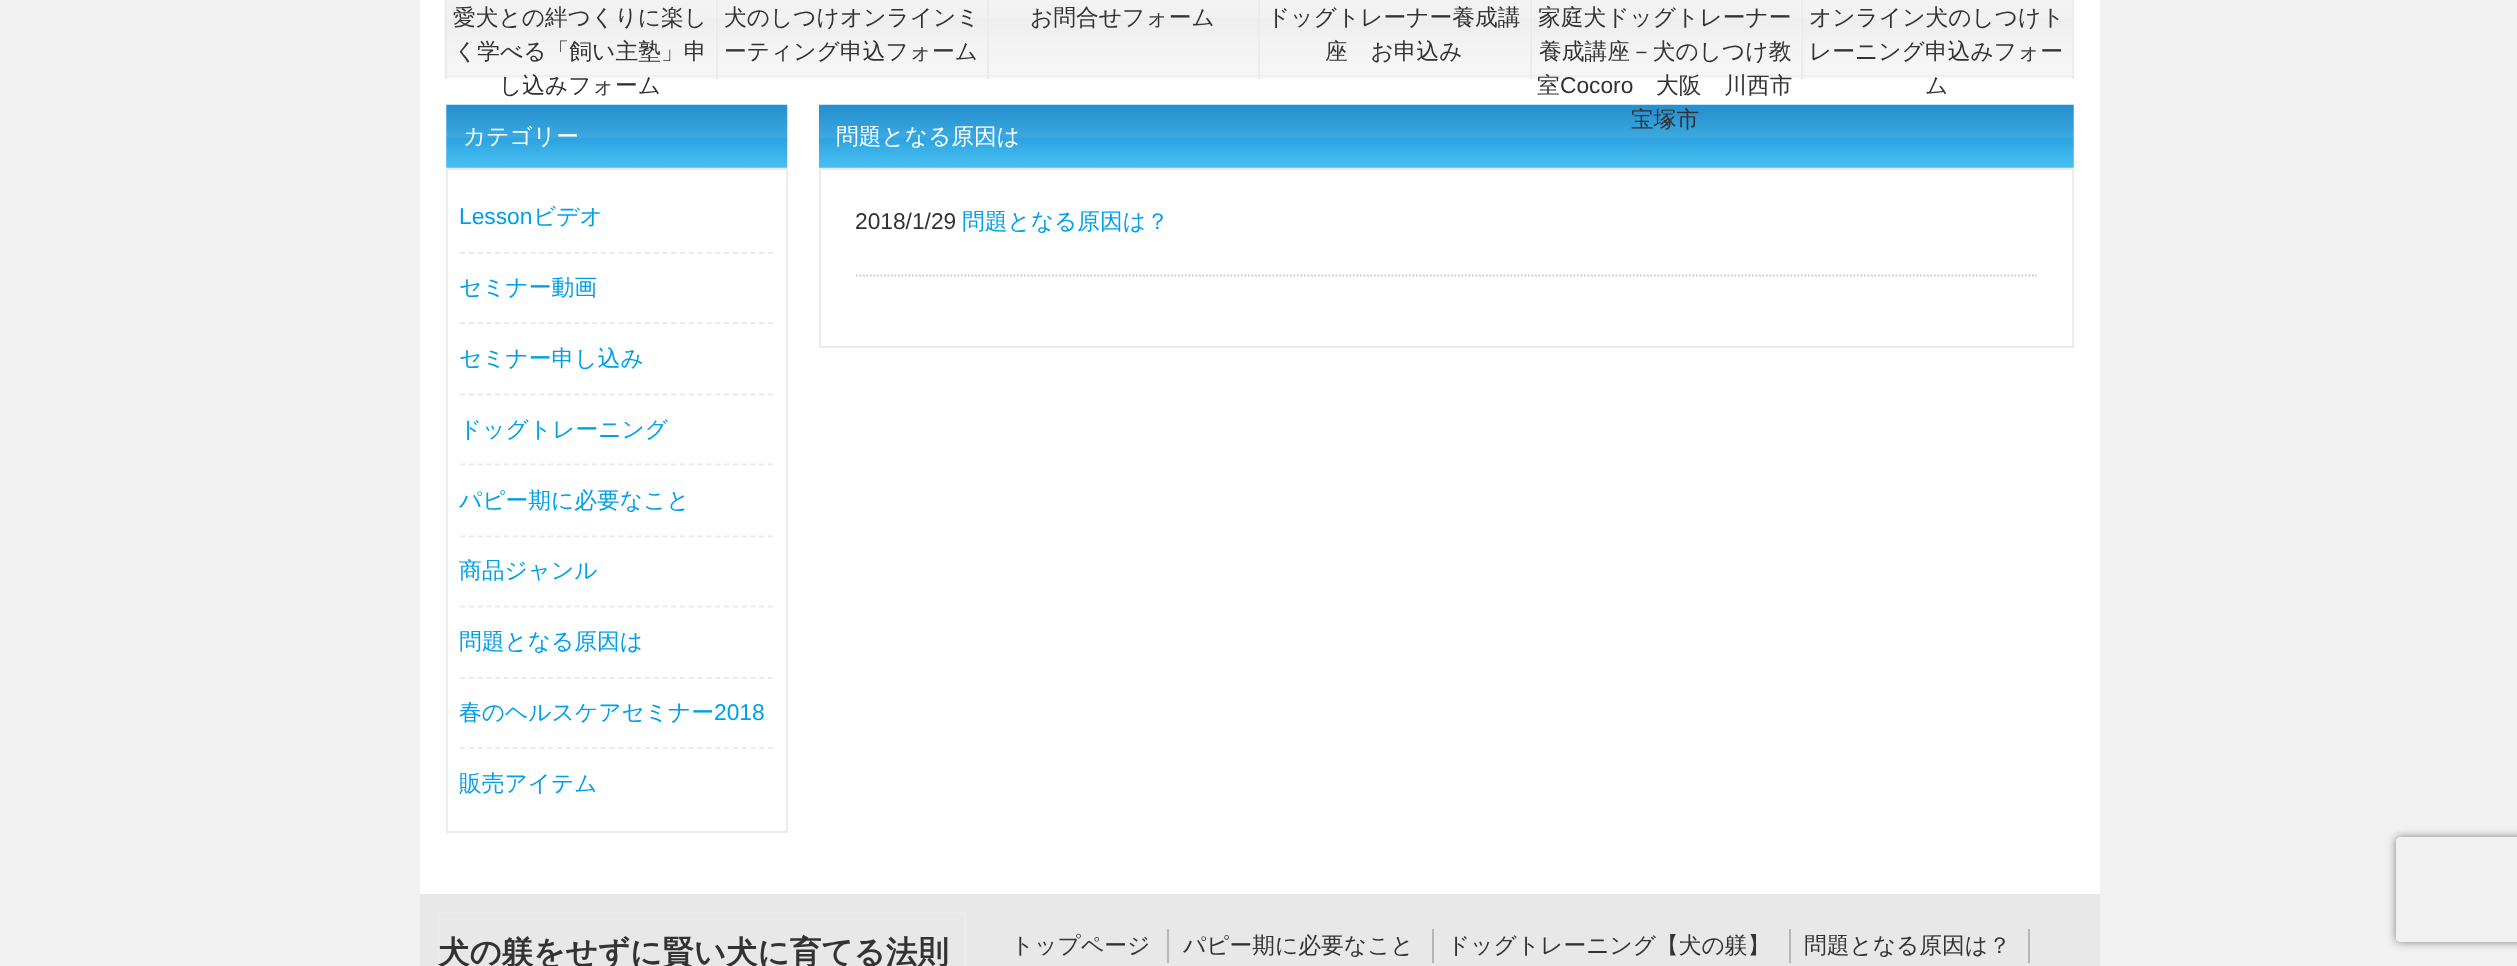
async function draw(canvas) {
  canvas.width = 2517
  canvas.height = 966
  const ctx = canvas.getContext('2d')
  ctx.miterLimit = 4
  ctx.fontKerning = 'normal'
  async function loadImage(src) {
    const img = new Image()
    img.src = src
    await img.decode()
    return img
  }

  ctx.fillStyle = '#f1f1f1'
  ctx.fillRect(0, 0, 2517, 966)
  ctx.fillStyle = '#fff'
  ctx.fillRect(420, 0, 1680, 894)
  ctx.drawImage(await loadImage('image0.png'), 444, 0, 272, 79)
  ctx.fillStyle = '#ebebeb'
  ctx.fillRect(445, 0, 2, 79)
  ctx.font = '500 22.75px WenQuanYi Zen Hei'
  ctx.fillStyle = '#333'
  ctx.fillText('愛犬との絆つくりに楽し', 453, 25)
  ctx.fillText('く学べる「飼い主塾」申', 454, 59)
  ctx.fillText('し込みフォーム', 499, 93)
  ctx.drawImage(await loadImage('image1.png'), 718, 0, 269, 79)
  ctx.fillStyle = '#ebebeb'
  ctx.fillRect(716, 0, 2, 79)
  ctx.fillStyle = '#333'
  ctx.fillText('犬のしつけオンラインミ', 724, 25)
  ctx.fillText('ーティング申込フォーム', 724, 59)
  ctx.drawImage(await loadImage('image1.png'), 989, 0, 269, 79)
  ctx.fillStyle = '#ebebeb'
  ctx.fillRect(987, 0, 2, 79)
  ctx.fillStyle = '#333'
  ctx.fillText('お問合せフォーム', 1030, 25)
  ctx.drawImage(await loadImage('image2.png'), 1260, 0, 270, 79)
  ctx.fillStyle = '#ebebeb'
  ctx.fillRect(1258, 0, 2, 79)
  ctx.fillStyle = '#333'
  ctx.fillText('ドッグトレーナー養成講', 1267, 25)
  ctx.fillText('座　お申込み', 1325, 59)
  ctx.drawImage(await loadImage('image3.png'), 1529, 0, 272, 79)
  ctx.fillStyle = '#ebebeb'
  ctx.fillRect(1530, 0, 2, 79)
  ctx.fillStyle = '#333'
  ctx.fillText('家庭犬ドッグトレーナー', 1538, 25)
  ctx.fillText('養成講座－犬のしつけ教', 1539, 59)
  ctx.fillText('室', 1537, 93)
  ctx.font = '22.75px Liberation Sans'
  ctx.fillText('Cocoro', 1560, 93)
  ctx.font = '500 22.75px WenQuanYi Zen Hei'
  ctx.fillText('大阪　川西市', 1656, 93)
  ctx.drawImage(await loadImage('image5.png'), 819, 104, 1255, 64)
  ctx.fillText('宝塚市', 1631, 127)
  ctx.fillStyle = '#ebebeb'
  ctx.fillRect(2072, 0, 2, 79)
  ctx.drawImage(await loadImage('image1.png'), 1803, 0, 269, 79)
  ctx.fillRect(1801, 0, 2, 79)
  ctx.fillStyle = '#333'
  ctx.fillText('オンライン犬のしつけト', 1809, 25)
  ctx.fillText('レーニング申込みフォー', 1809, 59)
  ctx.fillText('ム', 1925, 93)
  ctx.drawImage(await loadImage('image4.png'), 446, 104, 342, 64)
  ctx.fillStyle = '#fff'
  ctx.fillText('カテゴリー', 463, 144)
  ctx.strokeStyle = '#ebebeb'
  ctx.lineWidth = 2
  ctx.strokeRect(447, 169, 340, 663)
  ctx.beginPath()
  ctx.moveTo(460, 253)
  ctx.lineTo(773.5, 253)
  ctx.lineWidth = 1.8
  ctx.setLineDash([5.25, 3.55])
  ctx.stroke()
  ctx.font = '22.75px Liberation Sans'
  ctx.fillStyle = '#00a0e9'
  ctx.fillText('Lesson', 459, 224)
  ctx.font = '500 22.75px WenQuanYi Zen Hei'
  ctx.fillText('ビデオ', 533, 224)
  ctx.beginPath()
  ctx.moveTo(460, 323)
  ctx.lineTo(773.5, 323)
  ctx.stroke()
  ctx.fillText('セミナー動画', 459, 295)
  ctx.beginPath()
  ctx.moveTo(460, 394.5)
  ctx.lineTo(773.5, 394.5)
  ctx.stroke()
  ctx.fillText('セミナー申し込み', 459, 366)
  ctx.beginPath()
  ctx.moveTo(460, 464.5)
  ctx.lineTo(773.5, 464.5)
  ctx.stroke()
  ctx.fillText('ドッグトレーニング', 459, 437)
  ctx.beginPath()
  ctx.moveTo(460, 536.5)
  ctx.lineTo(773.5, 536.5)
  ctx.stroke()
  ctx.fillText('パピー期に必要なこと', 459, 508)
  ctx.beginPath()
  ctx.moveTo(460, 606.5)
  ctx.lineTo(773.5, 606.5)
  ctx.stroke()
  ctx.fillText('商品ジャンル', 459, 578)
  ctx.beginPath()
  ctx.moveTo(460, 678)
  ctx.lineTo(773.5, 678)
  ctx.stroke()
  ctx.fillText('問題となる原因は', 459, 649)
  ctx.beginPath()
  ctx.moveTo(460, 748)
  ctx.lineTo(773.5, 748)
  ctx.stroke()
  ctx.fillText('春のヘルスケアセミナー', 459, 720)
  ctx.font = '22.75px Liberation Sans'
  ctx.fillText('2018', 714, 720)
  ctx.font = '500 22.75px WenQuanYi Zen Hei'
  ctx.fillText('販売アイテム', 459, 791)
  ctx.fillStyle = '#fff'
  ctx.fillText('問題となる原因は', 836, 144)
  ctx.lineWidth = 2
  ctx.setLineDash([])
  ctx.strokeRect(820, 169, 1253, 178)
  ctx.beginPath()
  ctx.moveTo(856, 275.5)
  ctx.lineTo(2037, 275.5)
  ctx.strokeStyle = '#ccc'
  ctx.lineWidth = 1.8
  ctx.setLineDash([1.75, 1.75])
  ctx.stroke()
  ctx.font = '22.75px Liberation Sans'
  ctx.fillStyle = '#333'
  ctx.fillText('2018/1/29', 855, 229)
  ctx.font = '500 22.75px WenQuanYi Zen Hei'
  ctx.fillStyle = '#00a0e9'
  ctx.fillText('問題となる原因は？', 962, 229)
  ctx.fillStyle = '#e8e8e8'
  ctx.fillRect(420, 894, 1680, 72)
  ctx.strokeStyle = '#ebebeb'
  ctx.lineWidth = 2
  ctx.setLineDash([])
  ctx.strokeRect(439, 913, 526, 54)
  ctx.font = 'bold 31.5px WenQuanYi Zen Hei'
  ctx.fillStyle = '#333'
  ctx.fillText('犬の躾をせずに賢い犬に育てる法則', 438, 963)
  ctx.fillStyle = '#b6b6b6'
  ctx.fillRect(1167, 929, 2, 34)
  ctx.font = '500 22.75px WenQuanYi Zen Hei'
  ctx.fillStyle = '#333'
  ctx.fillText('トップページ', 1011, 953)
  ctx.fillStyle = '#b6b6b6'
  ctx.fillRect(1432, 929, 2, 34)
  ctx.fillStyle = '#333'
  ctx.fillText('パピー期に必要なこと', 1183, 953)
  ctx.fillStyle = '#b6b6b6'
  ctx.fillRect(1789, 929, 2, 34)
  ctx.fillStyle = '#333'
  ctx.fillText('ドッグトレーニング【犬の躾】', 1447, 953)
  ctx.fillStyle = '#b6b6b6'
  ctx.fillRect(2028, 929, 2, 34)
  ctx.fillStyle = '#333'
  ctx.fillText('問題となる原因は？', 1804, 953)
  ctx.save()
  ctx.beginPath()
  ctx.moveTo(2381, 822)
  ctx.lineTo(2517, 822)
  ctx.lineTo(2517, 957)
  ctx.lineTo(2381, 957)
  ctx.closePath()
  ctx.moveTo(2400, 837)
  ctx.lineTo(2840, 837)
  ctx.bezierCurveTo(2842, 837, 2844, 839, 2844, 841)
  ctx.lineTo(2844, 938)
  ctx.bezierCurveTo(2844, 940, 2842, 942, 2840, 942)
  ctx.lineTo(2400, 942)
  ctx.bezierCurveTo(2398, 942, 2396, 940, 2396, 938)
  ctx.lineTo(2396, 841)
  ctx.bezierCurveTo(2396, 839, 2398, 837, 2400, 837)
  ctx.closePath()
  ctx.clip('evenodd')
  ctx.fillStyle = '#808080'
  ctx.filter = 'blur(4.5px)'
  ctx.beginPath()
  ctx.roundRect(2396, 837, 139, 105, 4)
  ctx.fill()
  ctx.filter = 'none'
  ctx.restore()
}

draw(document.querySelector('canvas'))
